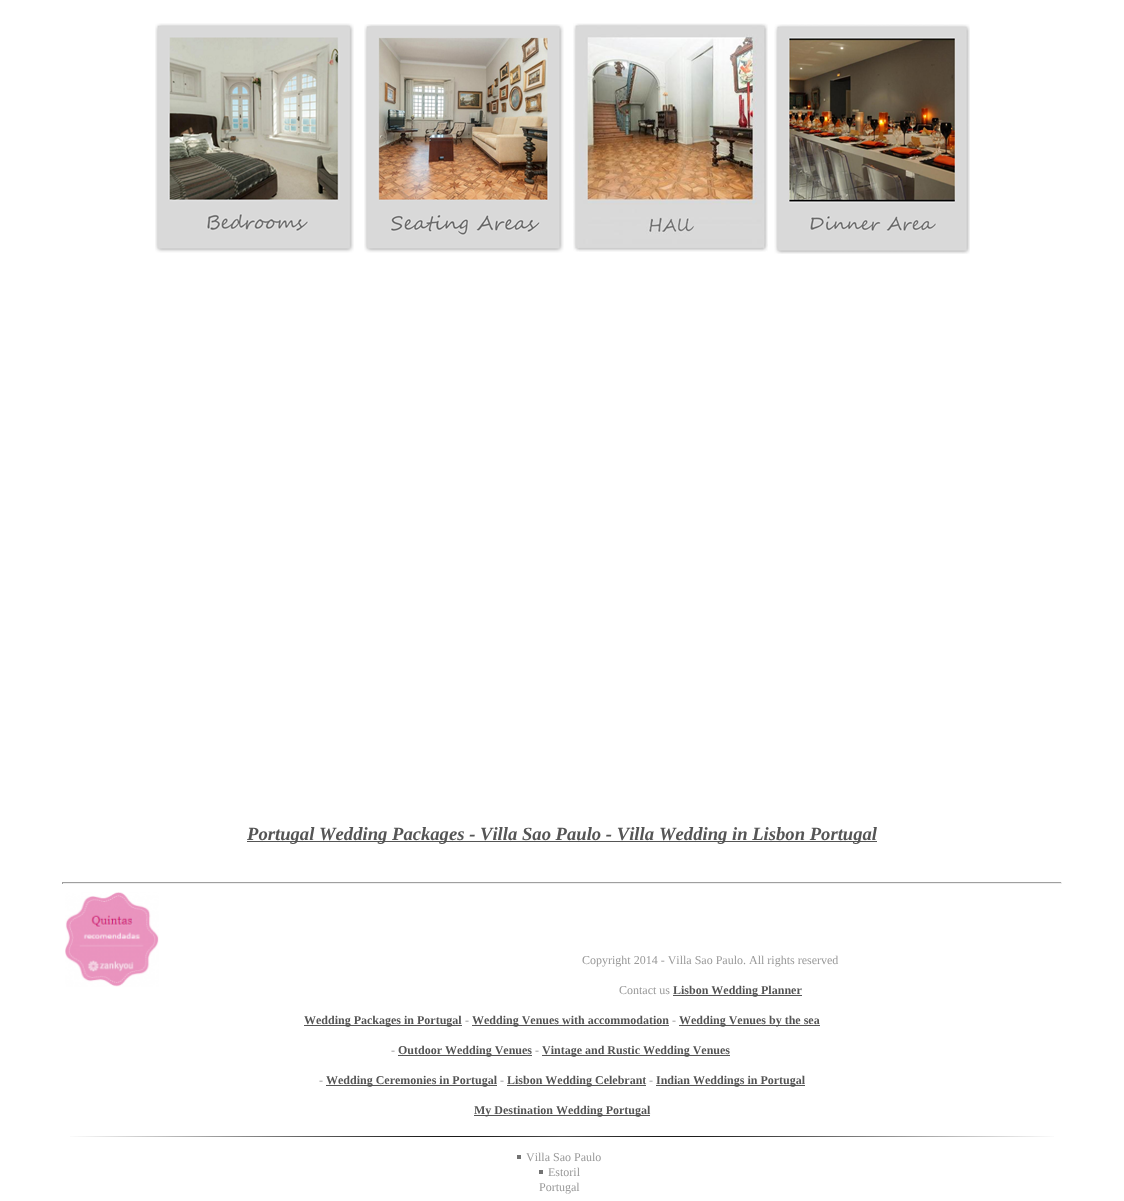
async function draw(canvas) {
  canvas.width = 1124
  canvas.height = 1201
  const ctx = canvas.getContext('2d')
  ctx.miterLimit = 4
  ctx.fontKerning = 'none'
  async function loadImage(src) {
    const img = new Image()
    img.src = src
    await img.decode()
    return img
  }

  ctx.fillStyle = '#fff'
  ctx.fillRect(0, 0, 1124, 1201)
  ctx.drawImage(await loadImage('image0.png'), 155, 23, 199, 230)
  ctx.drawImage(await loadImage('image1.png'), 364, 24, 200, 229)
  ctx.drawImage(await loadImage('image2.png'), 573, 23, 195, 229)
  ctx.drawImage(await loadImage('image3.png'), 774, 24, 196, 230)
  ctx.drawImage(await loadImage('image4.png'), 70, 1136, 492, 1)
  ctx.fillStyle = '#555'
  ctx.fillRect(247, 841, 630, 1)
  ctx.font = 'italic bold 18.65px Liberation Serif'
  ctx.fillText('Portugal Wedding Packages - Villa Sao Paulo - Villa', 247, 840)
  ctx.fillText('Wedding in Lisbon Portugal', 659, 840)
  ctx.fillStyle = '#9f9f9f'
  ctx.fillRect(62, 882, 1000, 1)
  ctx.fillStyle = '#eee'
  ctx.fillRect(1061, 882, 1, 2)
  ctx.fillRect(62, 883, 1000, 1)
  ctx.fillStyle = '#9f9f9f'
  ctx.fillRect(62, 882, 1, 2)
  ctx.drawImage(await loadImage('image5.png'), 65, 892, 94, 95)
  ctx.font = '12px Liberation Serif'
  ctx.fillStyle = '#999'
  ctx.fillText('Copyright 2014 - Villa Sao Paulo. All rights reserved', 582, 964)
  ctx.fillText('Contact us', 619, 994)
  ctx.fillStyle = '#555'
  ctx.fillRect(673, 995, 129, 1)
  ctx.font = 'bold 12px Liberation Serif'
  ctx.fillText('Lisbon Wedding Planner', 673, 994)
  ctx.fillRect(304, 1025, 158, 1)
  ctx.fillText('Wedding Packages in Portugal', 304, 1024)
  ctx.font = '12px Liberation Serif'
  ctx.fillStyle = '#999'
  ctx.fillText('-', 465, 1024)
  ctx.fillStyle = '#555'
  ctx.fillRect(472, 1025, 197, 1)
  ctx.font = 'bold 12px Liberation Serif'
  ctx.fillText('Wedding Venues with accommodation', 472, 1024)
  ctx.font = '12px Liberation Serif'
  ctx.fillStyle = '#999'
  ctx.fillText('-', 672, 1024)
  ctx.fillStyle = '#555'
  ctx.fillRect(679, 1025, 141, 1)
  ctx.font = 'bold 12px Liberation Serif'
  ctx.fillText('Wedding Venues by the sea', 679, 1024)
  ctx.font = '12px Liberation Serif'
  ctx.fillStyle = '#999'
  ctx.fillText('-', 391, 1054)
  ctx.fillStyle = '#555'
  ctx.fillRect(398, 1055, 134, 1)
  ctx.font = 'bold 12px Liberation Serif'
  ctx.fillText('Outdoor Wedding Venues', 398, 1054)
  ctx.font = '12px Liberation Serif'
  ctx.fillStyle = '#999'
  ctx.fillText('-', 535, 1054)
  ctx.fillStyle = '#555'
  ctx.fillRect(542, 1055, 188, 1)
  ctx.font = 'bold 12px Liberation Serif'
  ctx.fillText('Vintage and Rustic Wedding Venues', 542, 1054)
  ctx.font = '12px Liberation Serif'
  ctx.fillStyle = '#999'
  ctx.fillText('-', 319, 1084)
  ctx.fillStyle = '#555'
  ctx.fillRect(326, 1085, 171, 1)
  ctx.font = 'bold 12px Liberation Serif'
  ctx.fillText('Wedding Ceremonies in Portugal', 326, 1084)
  ctx.font = '12px Liberation Serif'
  ctx.fillStyle = '#999'
  ctx.fillText('-', 500, 1084)
  ctx.fillStyle = '#555'
  ctx.fillRect(507, 1085, 139, 1)
  ctx.font = 'bold 12px Liberation Serif'
  ctx.fillText('Lisbon Wedding Celebrant', 507, 1084)
  ctx.font = '12px Liberation Serif'
  ctx.fillStyle = '#999'
  ctx.fillText('-', 649, 1084)
  ctx.fillStyle = '#555'
  ctx.fillRect(656, 1085, 149, 1)
  ctx.font = 'bold 12px Liberation Serif'
  ctx.fillText('Indian Weddings in Portugal', 656, 1084)
  ctx.fillRect(474, 1115, 176, 1)
  ctx.fillText('My Destination Wedding Portugal', 474, 1114)
  ctx.drawImage(await loadImage('image6.png'), 562, 1136, 492, 1)
  ctx.font = '12px Liberation Serif'
  ctx.fillStyle = '#999'
  ctx.fillText('Villa Sao Paulo', 526, 1161)
  ctx.fillStyle = '#727272'
  ctx.fillRect(517, 1155, 4, 4)
  ctx.fillStyle = '#999'
  ctx.fillText('Estoril', 548, 1176)
  ctx.fillStyle = '#727272'
  ctx.fillRect(539, 1170, 4, 4)
  ctx.fillStyle = '#999'
  ctx.fillText('Portugal', 539, 1191)
}

draw(document.querySelector('canvas'))
